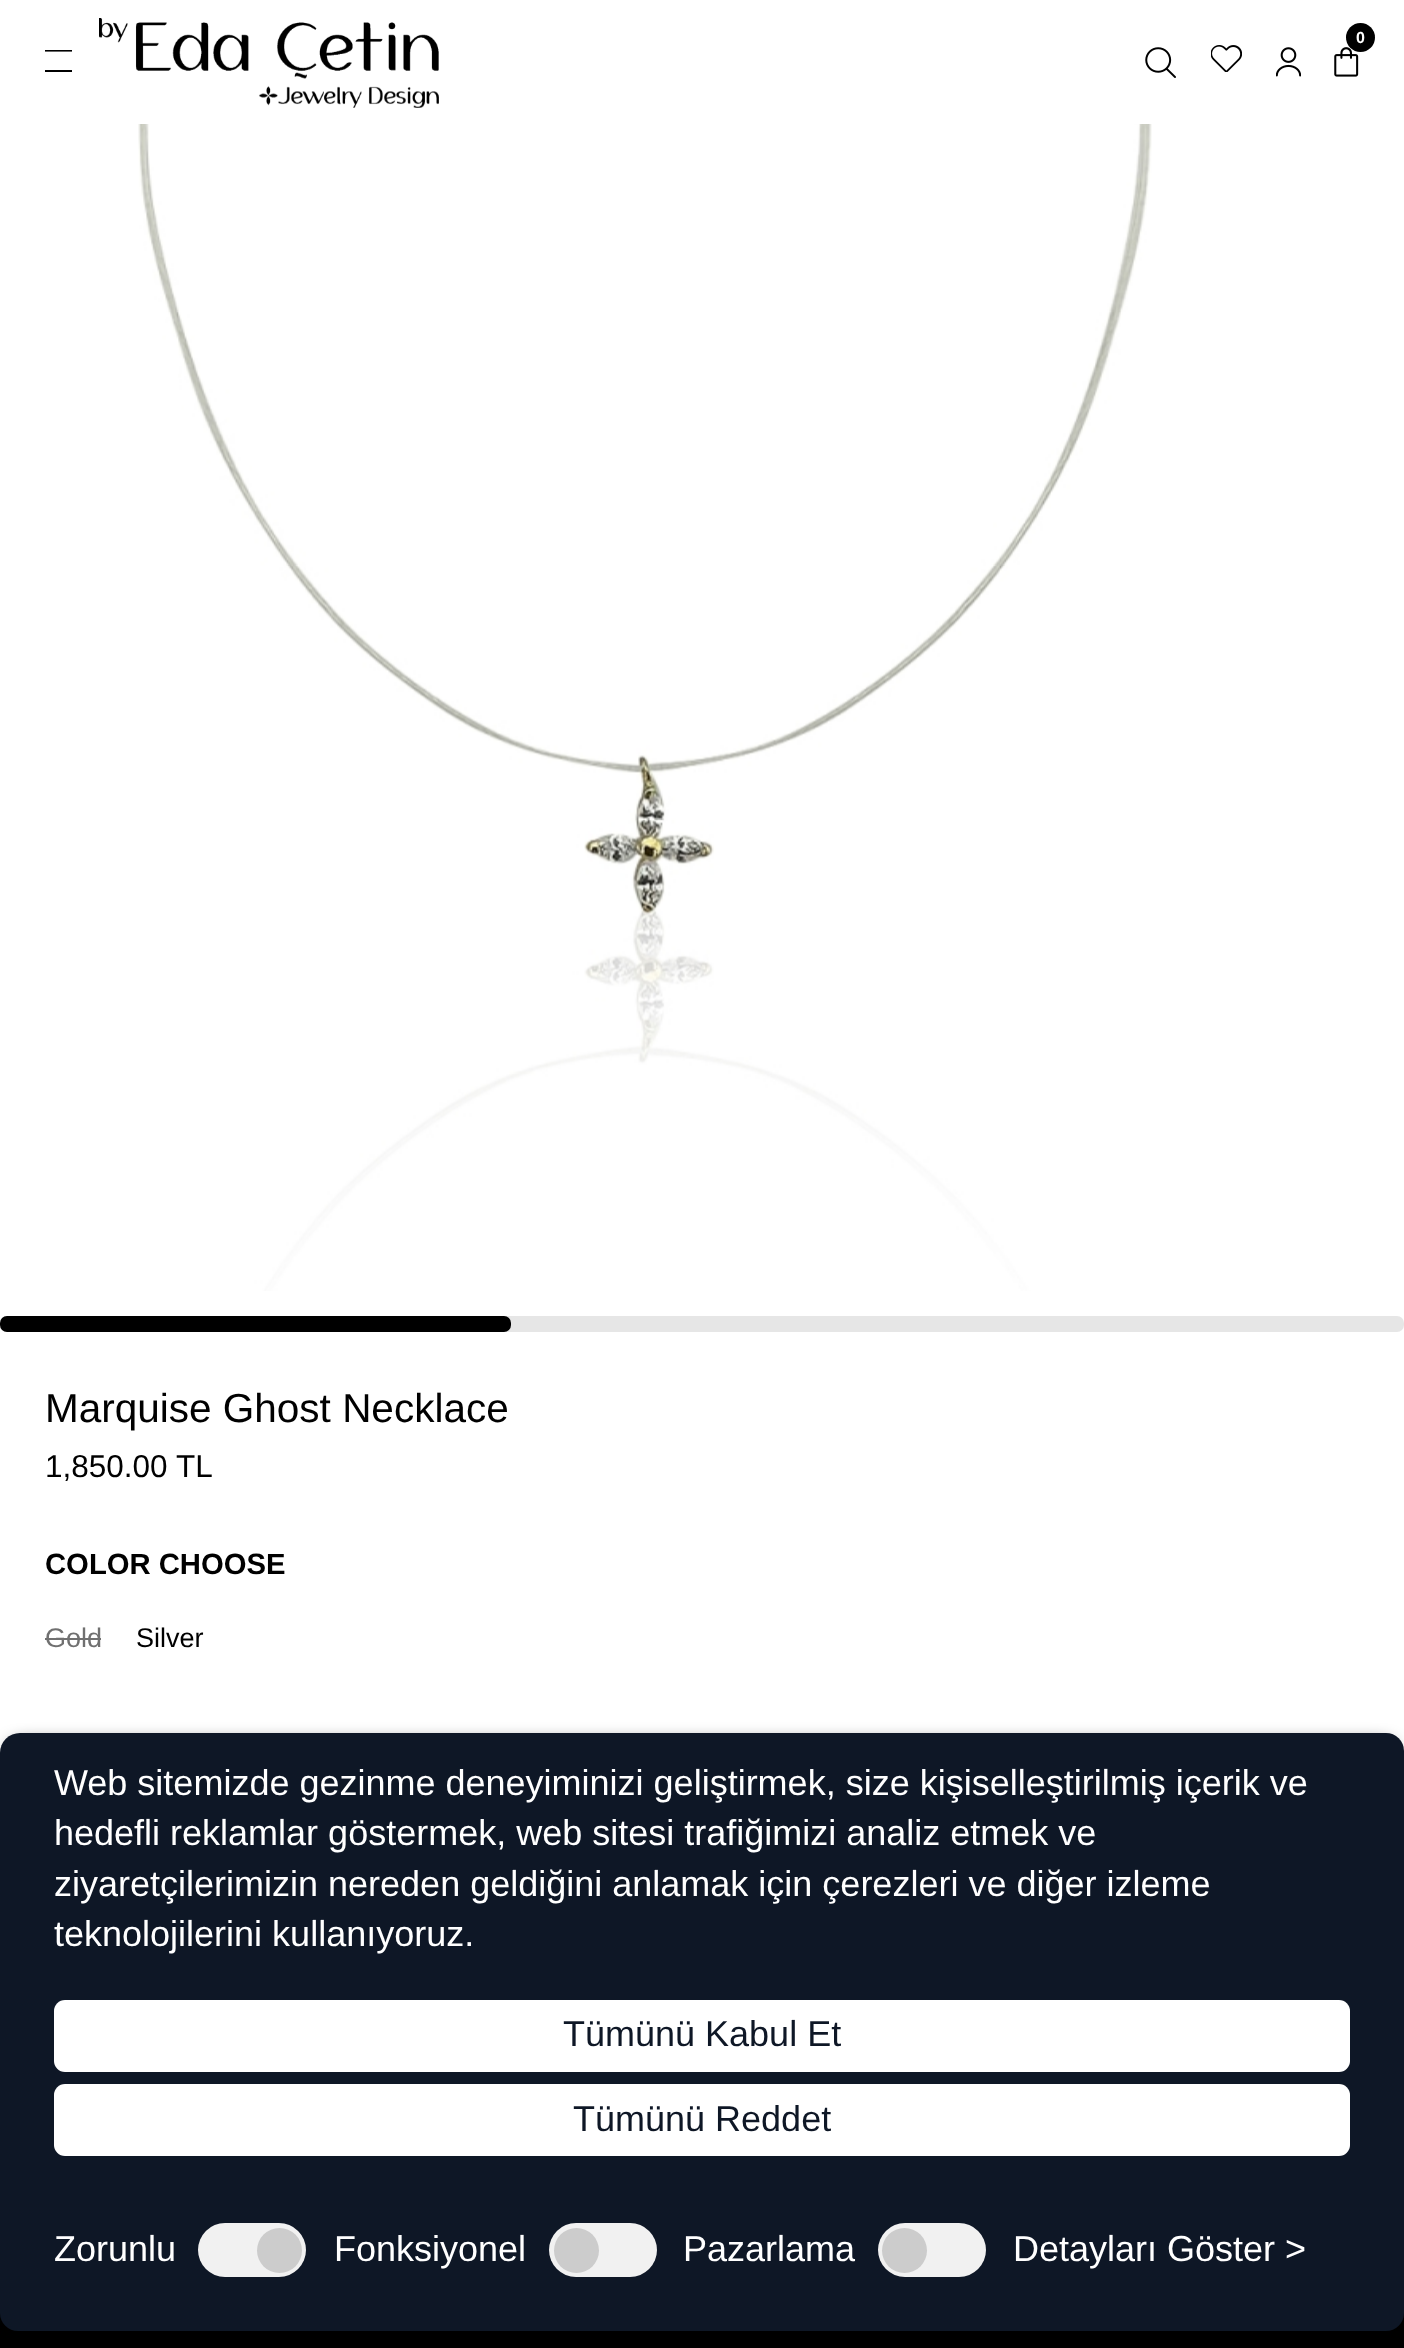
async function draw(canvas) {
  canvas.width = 1404
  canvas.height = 2348
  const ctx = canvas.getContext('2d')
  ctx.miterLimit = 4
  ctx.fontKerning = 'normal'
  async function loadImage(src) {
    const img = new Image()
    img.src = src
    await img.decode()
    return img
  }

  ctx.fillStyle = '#fff'
  ctx.fillRect(0, 0, 1404, 2348)
  ctx.drawImage(await loadImage('image0.png'), 99, 18, 340, 90)
  ctx.drawImage(await loadImage('image1.png'), 1334, 47, 25, 30)
  ctx.fillStyle = '#000'
  ctx.beginPath()
  ctx.arc(1360.5, 37.5, 14.5, 0, 2 * Math.PI)
  ctx.fill()
  ctx.font = 'bold 16px Liberation Sans'
  ctx.fillStyle = '#fff'
  ctx.fillText('0', 1356, 43)
  ctx.drawImage(await loadImage('image2.png'), 1145, 47, 31, 31)
  ctx.drawImage(await loadImage('image3.png'), 1211, 45, 31, 27)
  ctx.drawImage(await loadImage('image4.png'), 1276, 47, 25, 30)
  ctx.save()
  ctx.beginPath()
  ctx.rect(45, 50, 27, 22)
  ctx.clip()
  ctx.beginPath()
  ctx.moveTo(45, 50.5)
  ctx.lineTo(72, 50.5)
  ctx.strokeStyle = '#000'
  ctx.lineWidth = 2.2
  ctx.stroke()
  ctx.restore()
  ctx.fillStyle = '#000'
  ctx.fillRect(45, 70, 27, 2)
  ctx.drawImage(await loadImage('image5.png'), 138, 124, 1014, 1167)
  ctx.fillStyle = '#e6e6e6'
  ctx.beginPath()
  ctx.roundRect(0, 1316, 1404, 16, 7)
  ctx.fill()
  ctx.fillStyle = '#000'
  ctx.beginPath()
  ctx.roundRect(0, 1316, 511, 16, 7)
  ctx.fill()
  ctx.font = '40.5px Liberation Sans'
  ctx.fillText('Marquise Ghost Necklace', 45, 1422)
  ctx.font = '31.5px Liberation Sans'
  ctx.fillText('1,850.00', 45, 1477)
  ctx.fillText('TL', 176, 1477)
  ctx.font = 'bold 29.25px Liberation Sans'
  ctx.fillText('COLOR CHOOSE', 45, 1574)
  ctx.font = '27px Liberation Sans'
  ctx.fillStyle = '#707070'
  ctx.fillText('Gold', 45, 1647)
  ctx.fillRect(45, 1638, 56, 2)
  ctx.fillStyle = '#000'
  ctx.fillText('Silver', 136, 1647)
  ctx.fillRect(0, 2313, 1404, 35)
  ctx.filter = 'blur(9px)'
  ctx.beginPath()
  ctx.roundRect(11, 1744, 1382, 576, 9)
  ctx.fill()
  ctx.filter = 'none'
  ctx.fillStyle = '#0e1726'
  ctx.beginPath()
  ctx.roundRect(0, 1733, 1404, 598, [20, 18, 18, 18])
  ctx.fill()
  ctx.font = '36px Liberation Sans'
  ctx.fillStyle = '#fff'
  ctx.fillText('Web sitemizde gezinme deneyiminizi geliştirmek, size kişiselleştirilmiş içerik ve', 54, 1795)
  ctx.fillText('hedefli reklamlar göstermek, web sitesi trafiğimizi analiz etmek ve', 54, 1845)
  ctx.fillText('ziyaretçilerimizin nereden geldiğini anlamak için çerezleri ve diğer izleme', 54, 1896)
  ctx.fillText('teknolojilerini kullanıyoruz.', 54, 1946)
  ctx.beginPath()
  ctx.roundRect(54, 2000, 1296, 72, 11)
  ctx.fill()
  ctx.fillStyle = '#0e1726'
  ctx.fillText('Tümünü Kabul Et', 563, 2046)
  ctx.fillStyle = '#fff'
  ctx.beginPath()
  ctx.roundRect(54, 2084, 1296, 72, 11)
  ctx.fill()
  ctx.fillStyle = '#0e1726'
  ctx.fillText('Tümünü Reddet', 573, 2131)
  ctx.fillStyle = '#fff'
  ctx.fillText('Zorunlu', 54, 2261)
  ctx.fillStyle = '#f1f1f1'
  ctx.beginPath()
  ctx.roundRect(198, 2223, 108, 54, 27)
  ctx.fill()
  ctx.fillStyle = '#ccc'
  ctx.beginPath()
  ctx.arc(279.5, 2250.5, 22.5, 0, 2 * Math.PI)
  ctx.fill()
  ctx.fillStyle = '#fff'
  ctx.fillText('Fonksiyonel', 334, 2261)
  ctx.fillStyle = '#f1f1f1'
  ctx.beginPath()
  ctx.roundRect(549, 2223, 108, 54, 27)
  ctx.fill()
  ctx.fillStyle = '#ccc'
  ctx.beginPath()
  ctx.arc(576.5, 2250.5, 22.5, 0, 2 * Math.PI)
  ctx.fill()
  ctx.fillStyle = '#fff'
  ctx.fillText('Pazarlama', 683, 2261)
  ctx.fillStyle = '#f1f1f1'
  ctx.beginPath()
  ctx.roundRect(878, 2223, 108, 54, 27)
  ctx.fill()
  ctx.fillStyle = '#ccc'
  ctx.beginPath()
  ctx.arc(904.5, 2250.5, 22.5, 0, 2 * Math.PI)
  ctx.fill()
  ctx.fillStyle = '#fff'
  ctx.fillText('Detayları Göster >', 1013, 2261)
}

draw(document.querySelector('canvas'))
